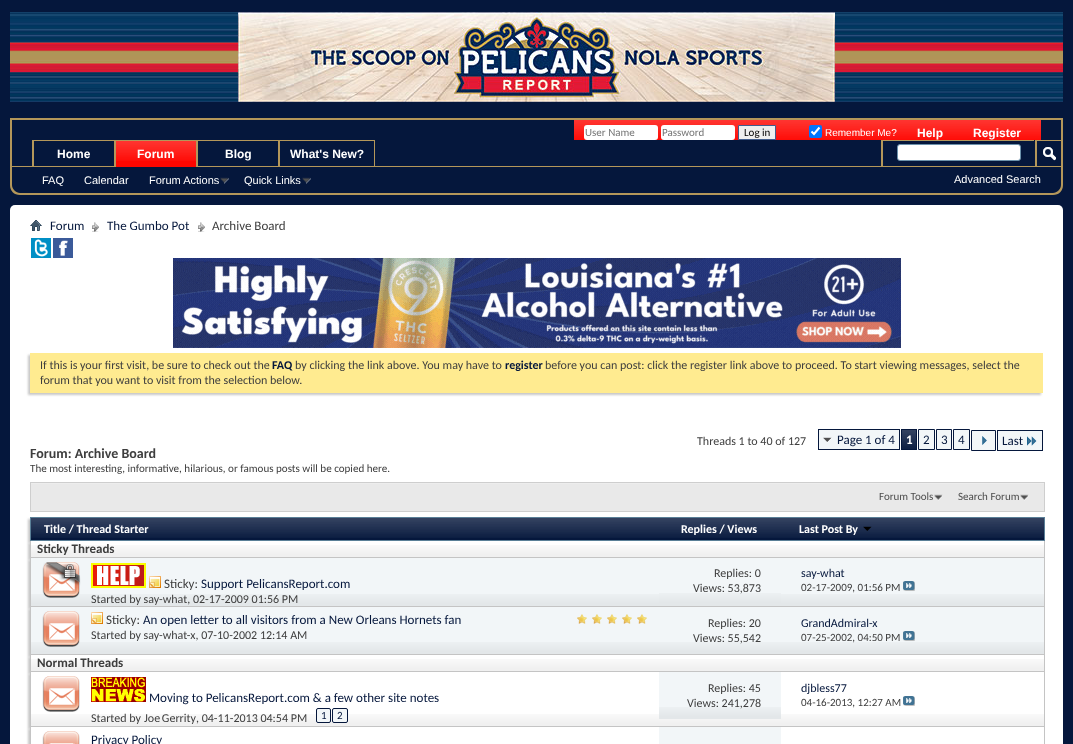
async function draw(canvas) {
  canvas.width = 1073
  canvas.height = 744
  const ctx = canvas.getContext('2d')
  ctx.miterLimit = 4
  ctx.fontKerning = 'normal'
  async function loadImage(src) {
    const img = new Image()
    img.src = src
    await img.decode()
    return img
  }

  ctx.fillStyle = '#05173c'
  ctx.fillRect(0, 0, 1073, 744)
  ctx.drawImage(await loadImage('image0.png'), 10, 12, 228, 90)
  ctx.drawImage(await loadImage('image1.png'), 238, 12, 597, 90)
  ctx.drawImage(await loadImage('image0.png'), 835, 12, 228, 90)
  ctx.fillStyle = '#b4975a'
  ctx.fillRect(10, 118, 1053, 2)
  ctx.fillRect(1061, 118, 2, 22)
  ctx.fillRect(10, 118, 2, 22)
  ctx.fillStyle = '#ff0600'
  ctx.fillRect(574, 120, 467, 20)
  ctx.drawImage(await loadImage('image2.png'), 574, 120, 467, 20)
  ctx.fillStyle = '#fff'
  ctx.beginPath()
  ctx.roundRect(584, 125, 74, 15, 3)
  ctx.fill()
  ctx.font = '11px Carlito'
  ctx.fillStyle = '#777'
  ctx.fillText('User Name', 585, 136)
  ctx.fillStyle = '#fff'
  ctx.beginPath()
  ctx.roundRect(661, 125, 74, 15, 3)
  ctx.fill()
  ctx.fillStyle = '#777'
  ctx.fillText('Password', 662, 136)
  ctx.fillStyle = '#efefef'
  ctx.beginPath()
  ctx.rect(738.5, 125.5, 37, 14)
  ctx.fill()
  ctx.strokeStyle = '#415d8d'
  ctx.stroke()
  ctx.fillStyle = '#000'
  ctx.fillText('Log in', 744, 136)
  ctx.fillStyle = '#0075ff'
  ctx.beginPath()
  ctx.roundRect(809, 125, 13, 13, 2)
  ctx.fill()
  ctx.beginPath()
  ctx.moveTo(811.5, 131.5)
  ctx.lineTo(814, 134)
  ctx.lineTo(819.5, 127.5)
  ctx.strokeStyle = '#fff'
  ctx.lineWidth = 2.1
  ctx.stroke()
  ctx.font = '10px Liberation Sans'
  ctx.fillStyle = '#fff'
  ctx.fillText('Remember Me?', 825, 136)
  ctx.font = 'bold 12px Liberation Sans'
  ctx.fillText('Help', 917, 137)
  ctx.fillText('Register', 973, 137)
  ctx.fillStyle = '#b4975a'
  ctx.beginPath()
  ctx.moveTo(10, 140)
  ctx.lineTo(1063, 140)
  ctx.lineTo(1063, 185)
  ctx.bezierCurveTo(1063, 191, 1059, 195, 1053, 195)
  ctx.lineTo(20, 195)
  ctx.bezierCurveTo(14, 195, 10, 191, 10, 185)
  ctx.closePath()
  ctx.moveTo(12, 140)
  ctx.lineTo(1061, 140)
  ctx.lineTo(1061, 185)
  ctx.bezierCurveTo(1061, 189, 1057, 193, 1053, 193)
  ctx.lineTo(20, 193)
  ctx.bezierCurveTo(16, 193, 12, 189, 12, 185)
  ctx.closePath()
  ctx.fill('evenodd')
  ctx.fillRect(114, 140, 1, 27)
  ctx.fillRect(32, 140, 1, 27)
  ctx.fillRect(33, 140, 81, 1)
  ctx.fillRect(33, 140, 1, 27)
  ctx.fillStyle = '#fff'
  ctx.fillText('Home', 57, 158)
  ctx.fillStyle = '#b4975a'
  ctx.fillRect(196, 140, 1, 26)
  ctx.fillRect(278, 140, 1, 27)
  ctx.fillRect(197, 140, 81, 1)
  ctx.fillRect(197, 140, 1, 27)
  ctx.fillRect(374, 140, 1, 27)
  ctx.fillRect(279, 140, 95, 1)
  ctx.fillRect(279, 140, 1, 27)
  ctx.fillRect(12, 166, 1049, 1)
  ctx.fillStyle = '#ff0600'
  ctx.fillRect(116, 141, 80, 26)
  ctx.drawImage(await loadImage('image3.png'), 116, 141, 80, 20)
  ctx.fillStyle = '#b4975a'
  ctx.fillRect(115, 140, 81, 1)
  ctx.fillRect(115, 140, 1, 27)
  ctx.fillStyle = '#fff'
  ctx.fillText('Forum', 137, 158)
  ctx.fillText('Blog', 225, 158)
  ctx.fillText('What\'s New?', 290, 158)
  ctx.font = '11px Liberation Sans'
  ctx.fillText('FAQ', 42, 184)
  ctx.fillText('Calendar', 84, 184)
  ctx.fillText('Forum Actions', 149, 184)
  ctx.drawImage(await loadImage('image4.png'), 220, 177, 9, 7)
  ctx.fillText('Quick Links', 244, 184)
  ctx.drawImage(await loadImage('image4.png'), 302, 177, 9, 7)
  ctx.fillStyle = '#b4975a'
  ctx.fillRect(881, 140, 1, 26)
  ctx.fillRect(882, 140, 152, 1)
  ctx.fillRect(882, 140, 1, 26)
  ctx.fillStyle = '#fff'
  ctx.beginPath()
  ctx.roundRect(897.5, 144.5, 123, 16, 2.5)
  ctx.fill()
  ctx.strokeStyle = '#6b91ab'
  ctx.lineWidth = 1
  ctx.stroke()
  ctx.fillStyle = '#b4975a'
  ctx.fillRect(1035, 140, 1, 26)
  ctx.fillRect(1036, 140, 25, 1)
  ctx.fillRect(1036, 140, 1, 26)
  ctx.drawImage(await loadImage('image5.png'), 1043, 147, 13, 14)
  ctx.fillStyle = '#fff'
  ctx.fillText('Advanced Search', 954, 183)
  ctx.beginPath()
  ctx.roundRect(10, 205, 1053, 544, 5)
  ctx.fill()
  ctx.drawImage(await loadImage('image6.png'), 30, 220, 12, 11)
  ctx.drawImage(await loadImage('image7.png'), 92, 222, 7, 10)
  ctx.font = '13px Carlito'
  ctx.fillStyle = '#05173c'
  ctx.fillText('Forum', 50, 230)
  ctx.drawImage(await loadImage('image7.png'), 198, 222, 7, 10)
  ctx.fillText('The Gumbo Pot', 107, 230)
  ctx.fillStyle = '#3e3e3e'
  ctx.fillText('Archive Board', 212, 230)
  ctx.drawImage(await loadImage('image8.png'), 31, 238, 20, 20)
  ctx.drawImage(await loadImage('image9.png'), 53, 238, 20, 20)
  ctx.drawImage(await loadImage('image10.png'), 173, 258, 728, 90)
  ctx.fillStyle = '#c8c8c8'
  ctx.filter = 'blur(1px)'
  ctx.beginPath()
  ctx.rect(28, 355, 1013, 40)
  ctx.fill()
  ctx.filter = 'none'
  ctx.fillStyle = '#ffeb90'
  ctx.fillRect(30, 353, 1013, 40)
  ctx.font = '12px Carlito'
  ctx.fillStyle = '#3e3e3e'
  ctx.fillText('If this is your first visit, be sure to check out the', 40, 369)
  ctx.font = 'bold 12px Carlito'
  ctx.fillStyle = '#05173c'
  ctx.fillText('FAQ', 272, 369)
  ctx.font = '12px Carlito'
  ctx.fillStyle = '#3e3e3e'
  ctx.fillText('by clicking the link above. You may have to', 295, 369)
  ctx.font = 'bold 12px Carlito'
  ctx.fillStyle = '#05173c'
  ctx.fillText('register', 505, 369)
  ctx.font = '12px Carlito'
  ctx.fillStyle = '#3e3e3e'
  ctx.fillText('before you can post: click the register link above to proceed. To start viewing messages, select the', 545, 369)
  ctx.fillText('forum that you want to visit from the selection below.', 40, 384)
  ctx.fillText('Threads 1 to 40 of 127', 697, 445)
  ctx.fillStyle = '#f2f6f8'
  ctx.fillRect(819, 430, 80, 19)
  ctx.drawImage(await loadImage('image11.png'), 823, 437, 9, 6)
  ctx.strokeStyle = '#05173c'
  ctx.strokeRect(818.5, 429.5, 81, 20)
  ctx.font = '13px Carlito'
  ctx.fillStyle = '#05173c'
  ctx.fillText('Page 1 of 4', 837, 444)
  ctx.fillRect(902, 430, 14, 19)
  ctx.drawImage(await loadImage('image12.png'), 902, 430, 14, 19)
  ctx.strokeRect(901.5, 429.5, 15, 20)
  ctx.font = 'bold 13px Carlito'
  ctx.fillStyle = '#fff'
  ctx.fillText('1', 906, 444)
  ctx.fillStyle = '#f2f6f8'
  ctx.beginPath()
  ctx.rect(918.5, 429.5, 16, 20)
  ctx.fill()
  ctx.stroke()
  ctx.font = '13px Carlito'
  ctx.fillStyle = '#05173c'
  ctx.fillText('2', 923, 444)
  ctx.fillStyle = '#f2f6f8'
  ctx.beginPath()
  ctx.rect(936.5, 429.5, 15, 20)
  ctx.fill()
  ctx.stroke()
  ctx.fillStyle = '#05173c'
  ctx.fillText('3', 941, 444)
  ctx.fillStyle = '#f2f6f8'
  ctx.beginPath()
  ctx.rect(953.5, 429.5, 16, 20)
  ctx.fill()
  ctx.stroke()
  ctx.fillStyle = '#05173c'
  ctx.fillText('4', 958, 444)
  ctx.fillStyle = '#f2f6f8'
  ctx.beginPath()
  ctx.rect(971.5, 430.5, 24, 20)
  ctx.fill()
  ctx.stroke()
  ctx.drawImage(await loadImage('image13.png'), 982, 436, 5, 9)
  ctx.fillRect(998, 431, 44, 19)
  ctx.fillStyle = '#05173c'
  ctx.fillText('Last', 1002, 445)
  ctx.fillRect(997, 430, 46, 1)
  ctx.fillRect(997, 450, 26, 1)
  ctx.fillRect(997, 430, 1, 21)
  ctx.fillRect(1042, 430, 1, 21)
  ctx.fillRect(1023, 450, 20, 1)
  ctx.drawImage(await loadImage('image14.png'), 1027, 436, 10, 10)
  ctx.font = 'bold 14px Carlito'
  ctx.fillStyle = '#3e3e3e'
  ctx.fillText('Forum: Archive Board', 30, 458)
  ctx.font = '11.05px Carlito'
  ctx.fillText('The most interesting, informative, hilarious, or famous posts will be copied here.', 30, 472)
  ctx.fillStyle = '#e9e9e9'
  ctx.fillRect(31, 484, 1013, 27)
  ctx.fillStyle = '#ededed'
  ctx.fillRect(30, 483, 1015, 1)
  ctx.strokeStyle = '#cecece'
  ctx.strokeRect(30.5, 482.5, 1014, 29)
  ctx.drawImage(await loadImage('image15.png'), 934, 494, 9, 7)
  ctx.font = '11px Carlito'
  ctx.fillStyle = '#4e4e4e'
  ctx.fillText('Forum Tools', 879, 500)
  ctx.drawImage(await loadImage('image15.png'), 1020, 494, 9, 7)
  ctx.fillText('Search Forum', 958, 500)
  ctx.fillStyle = '#c8c8c8'
  ctx.filter = 'blur(1px)'
  ctx.beginPath()
  ctx.rect(28, 519, 1015, 24)
  ctx.fill()
  ctx.filter = 'none'
  ctx.fillStyle = '#05173c'
  ctx.fillRect(31, 518, 1013, 22)
  ctx.drawImage(await loadImage('image16.png'), 31, 518, 1013, 20)
  ctx.strokeStyle = '#5a7f97'
  ctx.strokeRect(30.5, 517.5, 1014, 23)
  ctx.font = 'bold 12px Carlito'
  ctx.fillStyle = '#fff'
  ctx.fillText('Title / Thread Starter', 44, 533)
  ctx.fillText('Replies / Views', 681, 533)
  ctx.fillText('Last Post By', 799, 533)
  ctx.drawImage(await loadImage('image17.png'), 863, 526, 9, 5)
  ctx.fillStyle = '#c8c8c8'
  ctx.filter = 'blur(1px)'
  ctx.beginPath()
  ctx.rect(28, 543, 1013, 17)
  ctx.fill()
  ctx.filter = 'none'
  ctx.fillStyle = '#fff'
  ctx.fillRect(31, 541, 1013, 16)
  ctx.drawImage(await loadImage('image18.png'), 31, 545, 1013, 12)
  ctx.fillStyle = '#c4c4c4'
  ctx.fillRect(1044, 541, 1, 17)
  ctx.fillRect(30, 557, 1015, 1)
  ctx.fillRect(30, 541, 1, 17)
  ctx.font = 'bold 13px Carlito'
  ctx.fillStyle = '#3e3e3e'
  ctx.fillText('Sticky Threads', 37, 553)
  ctx.fillStyle = '#c8c8c8'
  ctx.filter = 'blur(1px)'
  ctx.beginPath()
  ctx.rect(28, 560, 1013, 49)
  ctx.fill()
  ctx.filter = 'none'
  ctx.fillStyle = '#f2f6f8'
  ctx.fillRect(31, 558, 1013, 48)
  ctx.drawImage(await loadImage('image19.png'), 31, 594, 1013, 12)
  ctx.fillStyle = '#c4c4c4'
  ctx.fillRect(1044, 558, 1, 49)
  ctx.fillRect(30, 606, 1015, 1)
  ctx.fillRect(30, 558, 1, 49)
  ctx.drawImage(await loadImage('image20.png'), 42, 562, 39, 36)
  ctx.drawImage(await loadImage('image21.png'), 91, 563, 55, 25)
  ctx.drawImage(await loadImage('image22.png'), 149, 576, 12, 12)
  ctx.font = '13px Carlito'
  ctx.fillStyle = '#3e3e3e'
  ctx.fillText('Sticky:', 164, 588)
  ctx.fillStyle = '#05173c'
  ctx.fillText('Support PelicansReport.com', 201, 588)
  ctx.font = '12px Carlito'
  ctx.fillStyle = '#3e3e3e'
  ctx.fillText('Started by say-what, 02-17-2009 01:56 PM', 91, 603)
  ctx.fillStyle = '#f2f6f8'
  ctx.fillRect(659, 594, 122, 11)
  ctx.drawImage(await loadImage('image23.png'), 659, 593, 122, 12)
  ctx.fillStyle = '#3e3e3e'
  ctx.fillText('Replies: 0', 714, 577)
  ctx.fillText('Views: 53,873', 693, 592)
  ctx.fillStyle = '#05173c'
  ctx.fillText('say-what', 801, 577)
  ctx.font = '11px Carlito'
  ctx.fillStyle = '#3e3e3e'
  ctx.fillText('02-17-2009, 01:56 PM', 801, 591)
  ctx.drawImage(await loadImage('image24.png'), 903, 581, 12, 10)
  ctx.fillStyle = '#c8c8c8'
  ctx.filter = 'blur(1px)'
  ctx.beginPath()
  ctx.rect(28, 609, 1013, 48)
  ctx.fill()
  ctx.filter = 'none'
  ctx.fillStyle = '#f2f6f8'
  ctx.fillRect(31, 607, 1013, 47)
  ctx.drawImage(await loadImage('image19.png'), 31, 642, 1013, 12)
  ctx.fillStyle = '#c4c4c4'
  ctx.fillRect(1044, 607, 1, 48)
  ctx.fillRect(30, 654, 1015, 1)
  ctx.fillRect(30, 607, 1, 48)
  ctx.drawImage(await loadImage('image25.png'), 42, 611, 38, 36)
  ctx.drawImage(await loadImage('image26.png'), 577, 614, 70, 10)
  ctx.drawImage(await loadImage('image22.png'), 91, 612, 12, 12)
  ctx.font = '13px Carlito'
  ctx.fillStyle = '#3e3e3e'
  ctx.fillText('Sticky:', 106, 624)
  ctx.fillStyle = '#05173c'
  ctx.fillText('An open letter to all visitors from a New Orleans Hornets fan', 143, 624)
  ctx.font = '12px Carlito'
  ctx.fillStyle = '#3e3e3e'
  ctx.fillText('Started by say-what-x, 07-10-2002 12:14 AM', 91, 639)
  ctx.fillStyle = '#f2f6f8'
  ctx.fillRect(659, 642, 122, 12)
  ctx.drawImage(await loadImage('image23.png'), 659, 642, 122, 12)
  ctx.fillStyle = '#3e3e3e'
  ctx.fillText('Replies: 20', 708, 627)
  ctx.fillText('Views: 55,542', 693, 642)
  ctx.fillStyle = '#05173c'
  ctx.fillText('GrandAdmiral-x', 801, 627)
  ctx.font = '11px Carlito'
  ctx.fillStyle = '#3e3e3e'
  ctx.fillText('07-25-2002, 04:50 PM', 801, 641)
  ctx.drawImage(await loadImage('image24.png'), 903, 631, 12, 10)
  ctx.fillStyle = '#c8c8c8'
  ctx.filter = 'blur(1px)'
  ctx.beginPath()
  ctx.rect(28, 657, 1013, 17)
  ctx.fill()
  ctx.filter = 'none'
  ctx.fillStyle = '#fff'
  ctx.fillRect(31, 655, 1012, 16)
  ctx.drawImage(await loadImage('image18.png'), 31, 659, 1013, 12)
  ctx.fillStyle = '#c4c4c4'
  ctx.fillRect(1044, 655, 1, 17)
  ctx.fillRect(30, 671, 1015, 1)
  ctx.fillRect(30, 655, 1, 17)
  ctx.font = 'bold 13px Carlito'
  ctx.fillStyle = '#3e3e3e'
  ctx.fillText('Normal Threads', 37, 667)
  ctx.fillStyle = '#c8c8c8'
  ctx.filter = 'blur(1px)'
  ctx.beginPath()
  ctx.rect(28, 674, 1013, 55)
  ctx.fill()
  ctx.filter = 'none'
  ctx.fillStyle = '#fff'
  ctx.fillRect(31, 672, 1012, 54)
  ctx.drawImage(await loadImage('image18.png'), 31, 714, 1013, 12)
  ctx.fillStyle = '#c4c4c4'
  ctx.fillRect(1044, 672, 1, 55)
  ctx.fillRect(30, 726, 1015, 1)
  ctx.fillRect(30, 672, 1, 55)
  ctx.drawImage(await loadImage('image27.png'), 42, 676, 38, 36)
  ctx.drawImage(await loadImage('image28.png'), 91, 677, 55, 25)
  ctx.font = '13px Carlito'
  ctx.fillStyle = '#05173c'
  ctx.fillText('Moving to PelicansReport.com & a few other site notes', 149, 702)
  ctx.font = '12px Carlito'
  ctx.fillStyle = '#3e3e3e'
  ctx.fillText('Started by', 91, 722)
  ctx.wordSpacing = '-1px'
  ctx.fillText('Joe Gerrity', 144, 722)
  ctx.wordSpacing = '0px'
  ctx.fillText(', 04-11-2013 04:54 PM', 196, 722)
  ctx.fillStyle = '#f2f6f8'
  ctx.beginPath()
  ctx.roundRect(316.5, 708.5, 14, 14, 1.5)
  ctx.fill()
  ctx.strokeStyle = '#05173c'
  ctx.stroke()
  ctx.font = '11px Carlito'
  ctx.fillStyle = '#05173c'
  ctx.fillText('1', 321, 719)
  ctx.fillStyle = '#f2f6f8'
  ctx.beginPath()
  ctx.roundRect(332.5, 708.5, 15, 14, 1.5)
  ctx.fill()
  ctx.stroke()
  ctx.fillStyle = '#05173c'
  ctx.fillText('2', 337, 719)
  ctx.fillStyle = '#f2f6f8'
  ctx.fillRect(659, 672, 122, 47)
  ctx.drawImage(await loadImage('image23.png'), 659, 707, 122, 12)
  ctx.font = '12px Carlito'
  ctx.fillStyle = '#3e3e3e'
  ctx.fillText('Replies: 45', 708, 692)
  ctx.fillText('Views: 241,278', 687, 707)
  ctx.fillStyle = '#05173c'
  ctx.fillText('djbless77', 801, 692)
  ctx.font = '11px Carlito'
  ctx.fillStyle = '#3e3e3e'
  ctx.fillText('04-16-2013, 12:27 AM', 801, 706)
  ctx.drawImage(await loadImage('image29.png'), 903, 696, 12, 10)
  ctx.fillStyle = '#c8c8c8'
  ctx.filter = 'blur(1px)'
  ctx.beginPath()
  ctx.rect(28, 729, 1013, 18)
  ctx.fill()
  ctx.filter = 'none'
  ctx.fillStyle = '#fff'
  ctx.fillRect(31, 727, 1012, 17)
  ctx.fillStyle = '#c4c4c4'
  ctx.fillRect(1044, 727, 1, 17)
  ctx.fillRect(30, 727, 1, 17)
  ctx.drawImage(await loadImage('image30.png'), 42, 731, 38, 13)
  ctx.font = '13px Carlito'
  ctx.fillStyle = '#05173c'
  ctx.fillText('Privacy Policy', 91, 744)
  ctx.fillStyle = '#f2f6f8'
  ctx.fillRect(659, 727, 122, 17)
}

draw(document.querySelector('canvas'))
